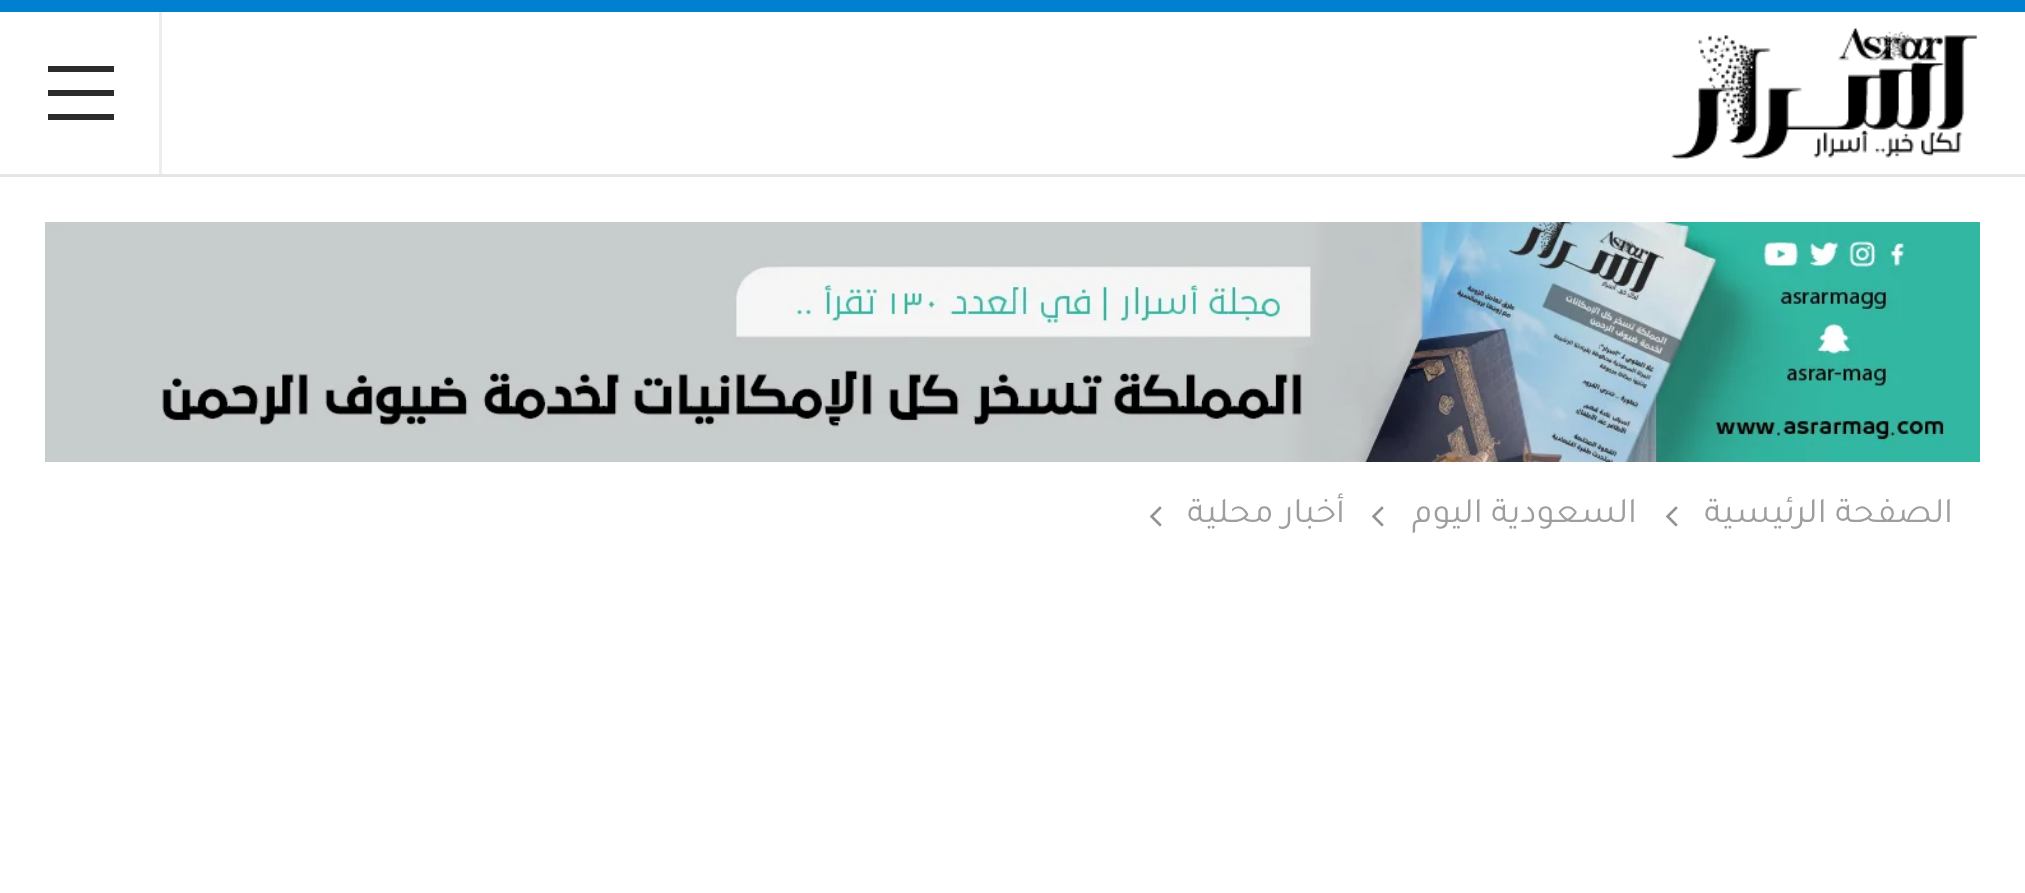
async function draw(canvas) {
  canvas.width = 2025
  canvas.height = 893
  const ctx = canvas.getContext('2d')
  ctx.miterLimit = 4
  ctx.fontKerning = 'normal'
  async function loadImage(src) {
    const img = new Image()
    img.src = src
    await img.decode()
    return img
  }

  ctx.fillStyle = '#0080ce'
  ctx.fillRect(0, 0, 2025, 893)
  ctx.fillStyle = '#fff'
  ctx.fillRect(0, 12, 2025, 881)
  ctx.fillStyle = '#e5e5e5'
  ctx.fillRect(0, 174, 2025, 3)
  ctx.drawImage(await loadImage('image0.png'), 1671, 28, 307, 131)
  ctx.fillStyle = '#ededed'
  ctx.fillRect(159, 12, 3, 162)
  ctx.fillStyle = '#2c2c2c'
  ctx.fillRect(48, 90, 66, 6)
  ctx.fillRect(48, 66, 66, 6)
  ctx.fillRect(48, 114, 66, 6)
  ctx.drawImage(await loadImage('image1.png'), 45, 222, 1935, 240)
  ctx.direction = 'rtl'
  ctx.font = '36px Tajawal'
  ctx.fillStyle = '#9e9e9e'
  ctx.fillText('الصفحة الرئيسية', 1953, 522)
  ctx.drawImage(await loadImage('image2.png'), 1666, 506, 12, 21)
  ctx.fillText('السعودية اليوم', 1637, 522)
  ctx.drawImage(await loadImage('image2.png'), 1372, 506, 12, 21)
  ctx.fillText('أخبار محلية', 1345, 522)
  ctx.drawImage(await loadImage('image2.png'), 1150, 506, 12, 21)
}

draw(document.querySelector('canvas'))
